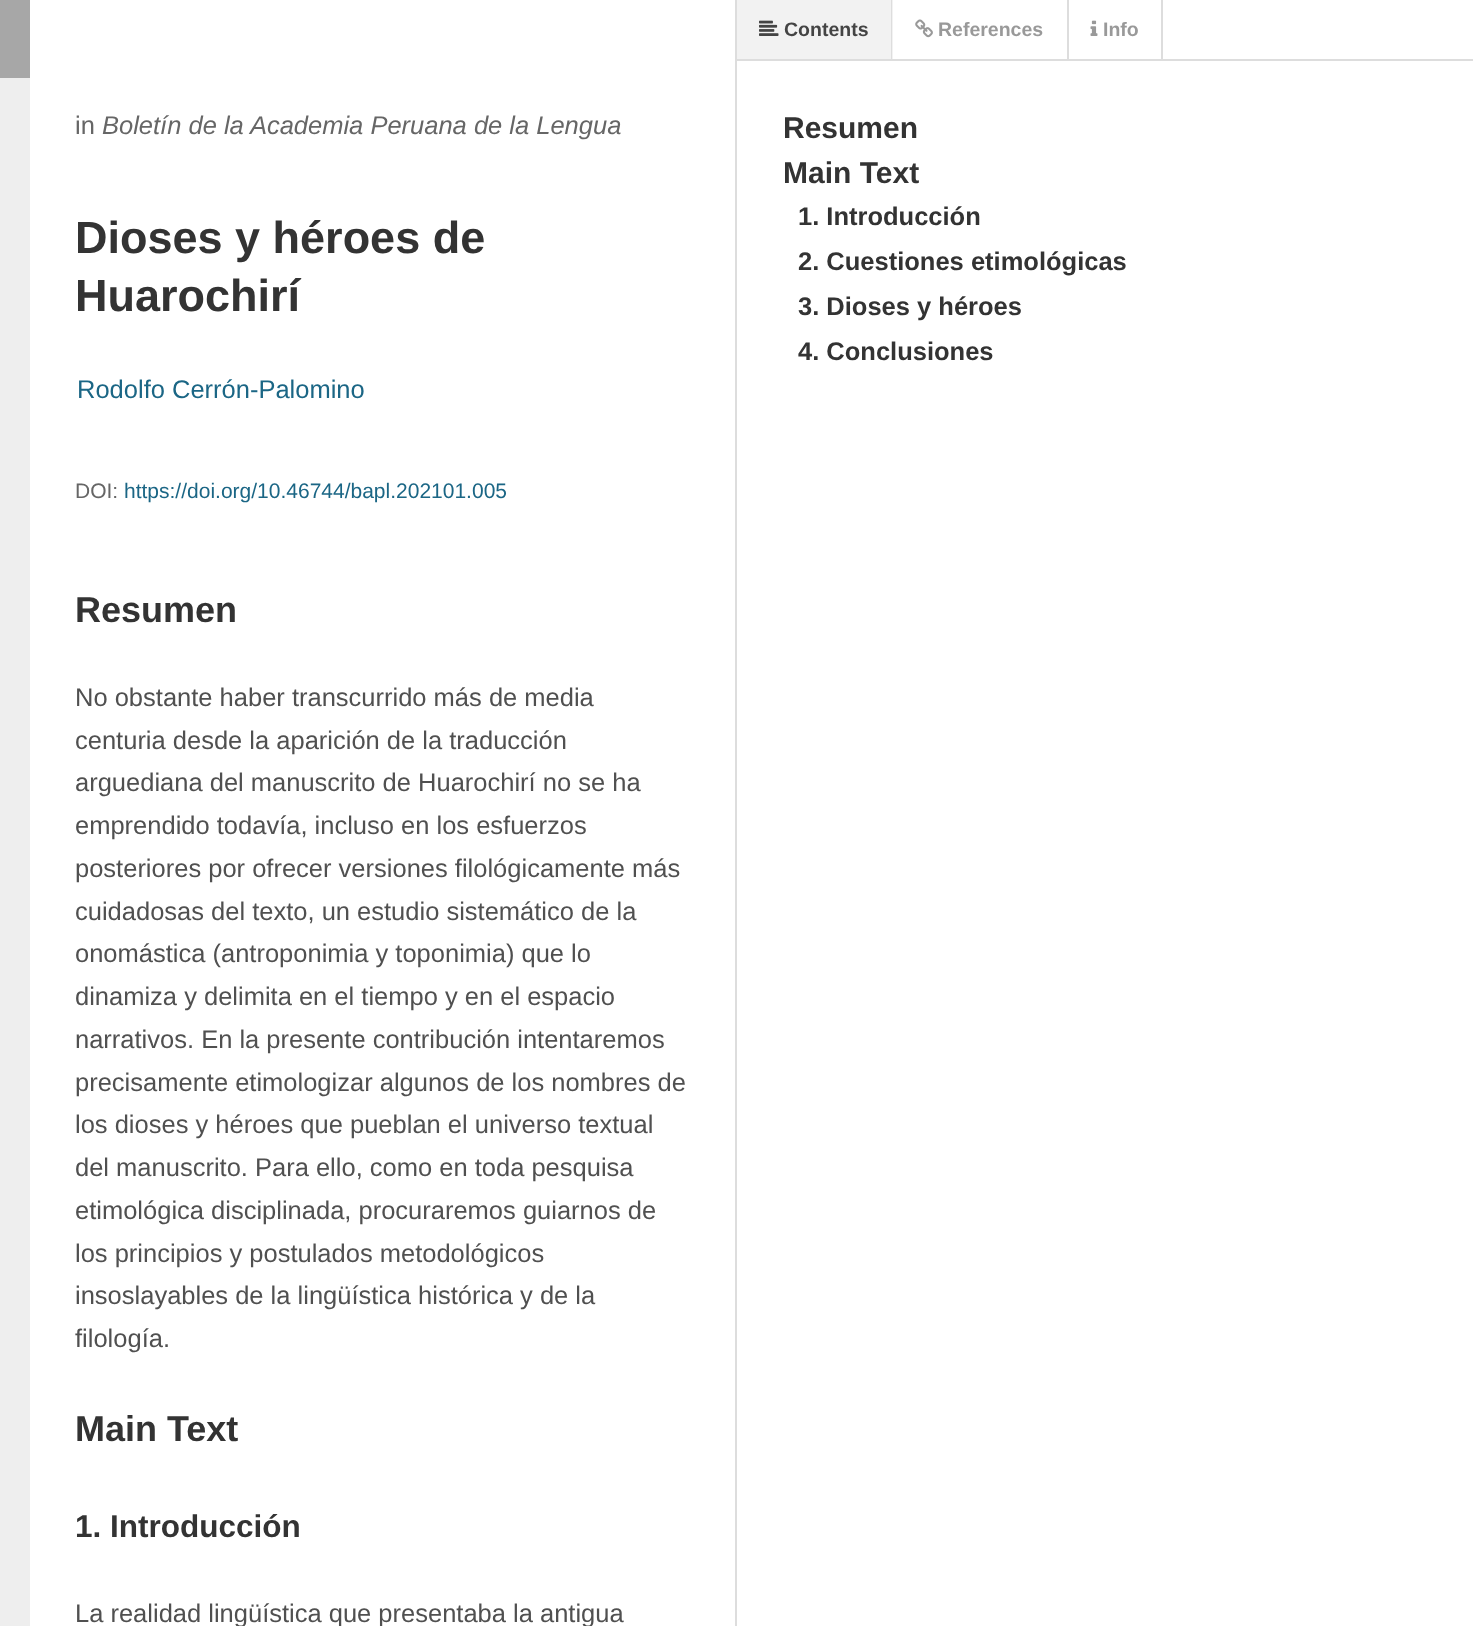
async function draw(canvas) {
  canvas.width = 1473
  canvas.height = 1626
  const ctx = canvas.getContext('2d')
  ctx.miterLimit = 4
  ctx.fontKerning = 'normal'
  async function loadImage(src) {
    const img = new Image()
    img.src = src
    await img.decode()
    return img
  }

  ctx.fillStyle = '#fff'
  ctx.fillRect(0, 0, 1473, 1626)
  ctx.fillStyle = '#ddd'
  ctx.fillRect(735, 0, 2, 1626)
  ctx.fillStyle = '#eee'
  ctx.fillRect(0, 78, 30, 1548)
  ctx.fillStyle = '#a7a7a7'
  ctx.fillRect(0, 0, 30, 78)
  ctx.font = '25.5px Liberation Sans'
  ctx.fillStyle = '#666'
  ctx.fillText('in', 75, 134)
  ctx.font = 'italic 25.5px Liberation Sans'
  ctx.fillText('Boletín de la Academia Peruana de la Lengua', 102, 134)
  ctx.font = 'bold 45px Liberation Sans'
  ctx.fillStyle = '#333'
  ctx.fillText('Dioses y héroes de', 75, 253)
  ctx.fillText('Huarochirí', 75, 311)
  ctx.font = '25.5px Liberation Sans'
  ctx.fillStyle = '#1b6685'
  ctx.fillText('Rodolfo Cerrón-Palomino', 77, 398)
  ctx.font = '21px Liberation Sans'
  ctx.fillStyle = '#666'
  ctx.fillText('DOI:', 75, 498)
  ctx.fillStyle = '#1b6685'
  ctx.fillText('https://doi.org/10.46744/bapl.202101.005', 124, 498)
  ctx.font = 'bold 36px Liberation Sans'
  ctx.fillStyle = '#333'
  ctx.fillText('Resumen', 75, 622)
  ctx.font = '25.5px Liberation Sans'
  ctx.fillStyle = '#505050'
  ctx.fillText('No obstante haber transcurrido más de media', 75, 706)
  ctx.fillText('centuria desde la aparición de la traducción', 75, 749)
  ctx.fillText('arguediana del manuscrito de Huarochirí no se ha', 75, 791)
  ctx.fillText('emprendido todavía, incluso en los esfuerzos', 75, 834)
  ctx.fillText('posteriores por ofrecer versiones filológicamente más', 75, 877)
  ctx.fillText('cuidadosas del texto, un estudio sistemático de la', 75, 920)
  ctx.fillText('onomástica (antroponimia y toponimia) que lo', 75, 962)
  ctx.fillText('dinamiza y delimita en el tiempo y en el espacio', 75, 1005)
  ctx.fillText('narrativos. En la presente contribución intentaremos', 75, 1048)
  ctx.fillText('precisamente etimologizar algunos de los nombres de', 75, 1091)
  ctx.fillText('los dioses y héroes que pueblan el universo textual', 75, 1133)
  ctx.fillText('del manuscrito. Para ello, como en toda pesquisa', 75, 1176)
  ctx.fillText('etimológica disciplinada, procuraremos guiarnos de', 75, 1219)
  ctx.fillText('los principios y postulados metodológicos', 75, 1262)
  ctx.fillText('insoslayables de la lingüística histórica y de la', 75, 1304)
  ctx.fillText('filología.', 75, 1347)
  ctx.font = 'bold 36px Liberation Sans'
  ctx.fillStyle = '#333'
  ctx.fillText('Main Text', 75, 1441)
  ctx.font = 'bold 31.5px Liberation Sans'
  ctx.fillText('1. Introducción', 75, 1537)
  ctx.font = '25.5px Liberation Sans'
  ctx.fillStyle = '#505050'
  ctx.fillText('La realidad lingüística que presentaba la antigua', 75, 1622)
  ctx.fillStyle = '#ddd'
  ctx.fillRect(737, 59, 736, 2)
  ctx.fillStyle = '#f2f2f2'
  ctx.fillRect(737, 0, 156, 59)
  ctx.save()
  ctx.beginPath()
  ctx.rect(737, 0, 736, 59)
  ctx.clip()
  ctx.fillStyle = '#ddd'
  ctx.beginPath()
  ctx.moveTo(892, 0)
  ctx.lineTo(892, 64)
  ctx.lineTo(891, 60)
  ctx.lineTo(891, 0)
  ctx.closePath()
  ctx.fill()
  ctx.restore()
  ctx.drawImage(await loadImage('image0.png'), 759, 20, 20, 16)
  ctx.font = 'bold 19.5px Liberation Sans'
  ctx.fillStyle = '#444'
  ctx.fillText('Contents', 784, 36)
  ctx.fillStyle = '#ddd'
  ctx.fillRect(1067, 0, 2, 59)
  ctx.drawImage(await loadImage('image1.png'), 915, 19, 18, 19)
  ctx.fillStyle = '#999'
  ctx.fillText('References', 938, 36)
  ctx.fillStyle = '#ddd'
  ctx.fillRect(1161, 0, 2, 59)
  ctx.drawImage(await loadImage('image2.png'), 1090, 20, 8, 16)
  ctx.fillStyle = '#999'
  ctx.fillText('Info', 1103, 36)
  ctx.font = 'bold 30px Liberation Sans'
  ctx.fillStyle = '#333'
  ctx.fillText('Resumen', 783, 138)
  ctx.fillText('Main Text', 783, 183)
  ctx.font = 'bold 25.5px Liberation Sans'
  ctx.fillText('1. Introducción', 798, 225)
  ctx.fillText('2. Cuestiones etimológicas', 798, 270)
  ctx.fillText('3. Dioses y héroes', 798, 315)
  ctx.fillText('4. Conclusiones', 798, 360)
}

draw(document.querySelector('canvas'))
